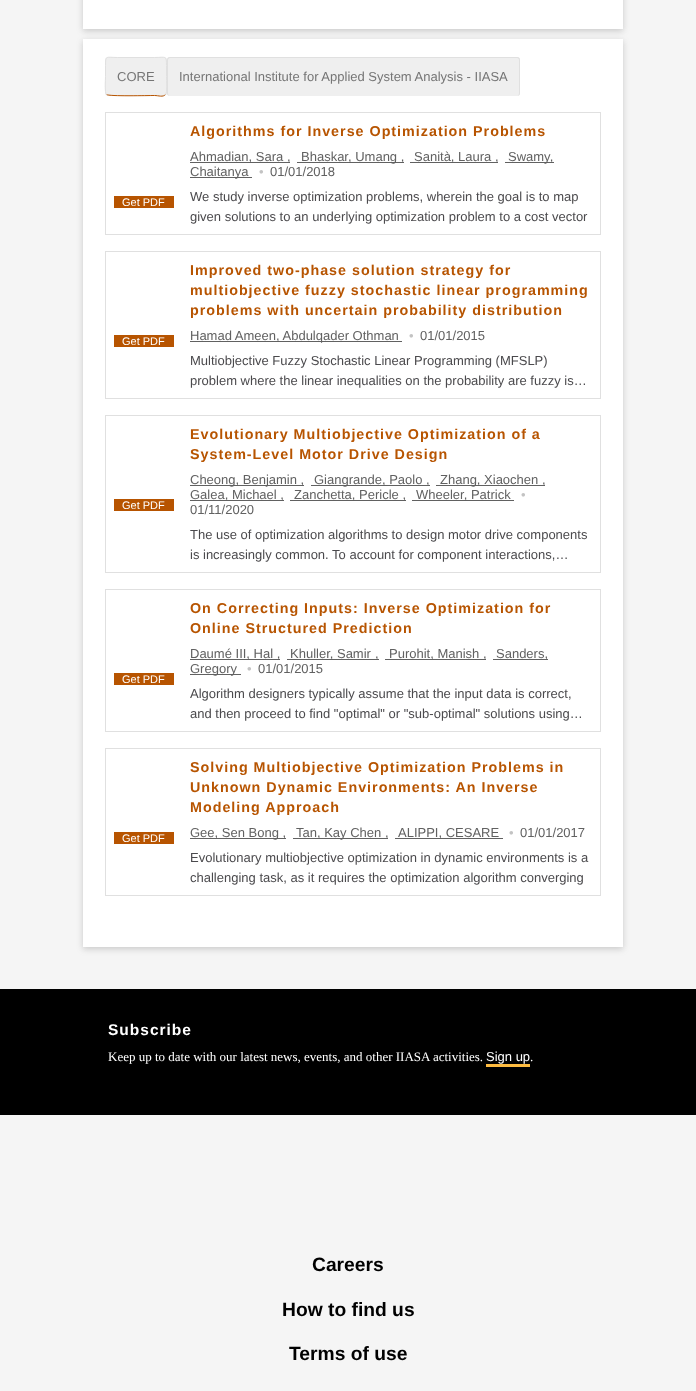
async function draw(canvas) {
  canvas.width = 696
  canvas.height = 1391
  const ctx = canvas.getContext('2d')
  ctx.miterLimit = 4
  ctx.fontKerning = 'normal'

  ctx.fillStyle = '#f5f5f5'
  ctx.fillRect(0, 0, 696, 1391)
  ctx.fillStyle = '#6464644d'
  ctx.filter = 'blur(3px)'
  ctx.beginPath()
  ctx.rect(83, -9, 540, 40)
  ctx.fill()
  ctx.filter = 'none'
  ctx.fillStyle = '#fff'
  ctx.fillRect(83, 0, 540, 29)
  ctx.fillStyle = '#6464644d'
  ctx.filter = 'blur(3px)'
  ctx.beginPath()
  ctx.rect(83, 41, 540, 908)
  ctx.fill()
  ctx.filter = 'none'
  ctx.fillStyle = '#fff'
  ctx.fillRect(83, 39, 540, 908)
  ctx.fillStyle = '#efefef'
  ctx.beginPath()
  ctx.roundRect(105, 57, 62, 39, 3)
  ctx.fill()
  ctx.beginPath()
  ctx.moveTo(165.5, 94.5)
  ctx.bezierCurveTo(163, 97.5, 158.5, 95.5, 154.5, 95.5)
  ctx.bezierCurveTo(148.5, 95.5, 108.5, 96.5, 106.5, 94.5)
  ctx.strokeStyle = '#b75400'
  ctx.stroke()
  ctx.beginPath()
  ctx.moveTo(106.5, 94.5)
  ctx.bezierCurveTo(104.5, 93, 105.5, 79.5, 105.5, 76.5)
  ctx.lineTo(105.5, 65.5)
  ctx.bezierCurveTo(105.5, 55, 106, 57.5, 117.5, 57.5)
  ctx.lineTo(154.5, 57.5)
  ctx.bezierCurveTo(166, 57.5, 166.5, 55, 166.5, 65.5)
  ctx.lineTo(166.5, 76.5)
  ctx.bezierCurveTo(166.5, 79.5, 167.5, 93, 165.5, 94.5)
  ctx.strokeStyle = '#e0e0e0'
  ctx.stroke()
  ctx.font = '13px Liberation Sans'
  ctx.fillStyle = '#757575'
  ctx.fillText('CORE', 117, 81)
  ctx.fillStyle = '#efefef'
  ctx.beginPath()
  ctx.roundRect(167, 57, 353, 39, 3)
  ctx.fill()
  ctx.fillStyle = '#e0e0e0'
  ctx.beginPath()
  ctx.moveTo(170, 57)
  ctx.lineTo(517, 57)
  ctx.bezierCurveTo(519, 57, 520, 58, 520, 60)
  ctx.lineTo(520, 93)
  ctx.bezierCurveTo(520, 95, 519, 96, 517, 96)
  ctx.lineTo(170, 96)
  ctx.bezierCurveTo(168, 96, 167, 95, 167, 93)
  ctx.lineTo(167, 60)
  ctx.bezierCurveTo(167, 58, 168, 57, 170, 57)
  ctx.closePath()
  ctx.moveTo(170, 58)
  ctx.lineTo(517, 58)
  ctx.bezierCurveTo(518, 58, 519, 59, 519, 60)
  ctx.lineTo(519, 93)
  ctx.bezierCurveTo(519, 95, 518, 96, 517, 96)
  ctx.lineTo(170, 96)
  ctx.bezierCurveTo(169, 96, 168, 95, 168, 93)
  ctx.lineTo(168, 60)
  ctx.bezierCurveTo(168, 59, 169, 58, 170, 58)
  ctx.closePath()
  ctx.fill('evenodd')
  ctx.fillStyle = '#757575'
  ctx.fillText('International Institute for Applied System Analysis - IIASA', 179, 81)
  ctx.strokeRect(105.5, 112.5, 495, 122)
  ctx.fillStyle = '#b75400'
  ctx.fillRect(114, 196, 60, 12)
  ctx.font = '11px Liberation Sans'
  ctx.fillStyle = '#fff'
  ctx.fillText('Get PDF', 122, 206)
  ctx.letterSpacing = '1px'
  ctx.font = 'bold 14.3px Liberation Sans'
  ctx.fillStyle = '#b75400'
  ctx.fillText('Algorithms for Inverse Optimization Problems', 190, 136)
  ctx.fillStyle = '#616161'
  ctx.fillRect(190, 162, 93, 1)
  ctx.letterSpacing = '0px'
  ctx.font = '13px Liberation Sans'
  ctx.fillText('Ahmadian, Sara', 190, 161)
  ctx.fillRect(283, 162, 7, 1)
  ctx.fillText(',', 287, 161)
  ctx.fillRect(297, 162, 107, 1)
  ctx.fillText('Bhaskar, Umang ,', 301, 161)
  ctx.fillRect(410, 162, 81, 1)
  ctx.fillText('Sanità, Laura', 414, 161)
  ctx.fillRect(491, 162, 7, 1)
  ctx.fillText(',', 495, 161)
  ctx.fillRect(505, 162, 49, 1)
  ctx.fillText('Swamy,', 508, 161)
  ctx.fillRect(190, 177, 62, 1)
  ctx.fillText('Chaitanya', 190, 176)
  ctx.fillStyle = '#c3c3c3'
  ctx.fillText('•', 259, 176)
  ctx.fillStyle = '#616161'
  ctx.fillText('01/01/2018', 270, 176)
  ctx.fillStyle = '#4b4a4d'
  ctx.fillText('We study inverse optimization problems, wherein the goal is to map', 190, 201)
  ctx.fillText('given solutions to an underlying optimization problem to a cost vector', 190, 221)
  ctx.strokeRect(105.5, 251.5, 495, 147)
  ctx.fillStyle = '#b75400'
  ctx.fillRect(114, 335, 60, 12)
  ctx.font = '11px Liberation Sans'
  ctx.fillStyle = '#fff'
  ctx.fillText('Get PDF', 122, 345)
  ctx.letterSpacing = '1px'
  ctx.font = 'bold 14.3px Liberation Sans'
  ctx.fillStyle = '#b75400'
  ctx.fillText('Improved two-phase solution strategy for', 190, 275)
  ctx.fillText('multiobjective fuzzy stochastic linear programming', 190, 295)
  ctx.fillText('problems with uncertain probability distribution', 190, 315)
  ctx.fillStyle = '#616161'
  ctx.fillRect(190, 341, 212, 1)
  ctx.letterSpacing = '0px'
  ctx.font = '13px Liberation Sans'
  ctx.fillText('Hamad Ameen, Abdulqader Othman', 190, 340)
  ctx.fillStyle = '#c3c3c3'
  ctx.fillText('•', 409, 340)
  ctx.fillStyle = '#616161'
  ctx.fillText('01/01/2015', 420, 340)
  ctx.fillStyle = '#4b4a4d'
  ctx.fillText('Multiobjective Fuzzy Stochastic Linear Programming (MFSLP)', 190, 365)
  ctx.fillText('problem where the linear inequalities on the probability are fuzzy is…', 190, 385)
  ctx.strokeRect(105.5, 415.5, 495, 157)
  ctx.fillStyle = '#b75400'
  ctx.fillRect(114, 499, 60, 12)
  ctx.font = '11px Liberation Sans'
  ctx.fillStyle = '#fff'
  ctx.fillText('Get PDF', 122, 509)
  ctx.letterSpacing = '1px'
  ctx.font = 'bold 14.3px Liberation Sans'
  ctx.fillStyle = '#b75400'
  ctx.fillText('Evolutionary Multiobjective Optimization of a', 190, 439)
  ctx.fillText('System-Level Motor Drive Design', 190, 459)
  ctx.fillStyle = '#616161'
  ctx.fillRect(190, 485, 114, 1)
  ctx.letterSpacing = '0px'
  ctx.font = '13px Liberation Sans'
  ctx.fillText('Cheong, Benjamin ,', 190, 484)
  ctx.fillRect(311, 485, 119, 1)
  ctx.fillText('Giangrande, Paolo ,', 314, 484)
  ctx.fillRect(436, 485, 109, 1)
  ctx.fillText('Zhang, Xiaochen ,', 440, 484)
  ctx.fillRect(190, 500, 94, 1)
  ctx.fillText('Galea, Michael ,', 190, 499)
  ctx.fillRect(290, 500, 116, 1)
  ctx.fillText('Zanchetta, Pericle ,', 294, 499)
  ctx.fillRect(412, 500, 102, 1)
  ctx.fillText('Wheeler, Patrick', 416, 499)
  ctx.fillStyle = '#c3c3c3'
  ctx.fillText('•', 521, 499)
  ctx.fillStyle = '#616161'
  ctx.fillText('01/11/2020', 190, 514)
  ctx.fillStyle = '#4b4a4d'
  ctx.fillText('The use of optimization algorithms to design motor drive components', 190, 539)
  ctx.fillText('is increasingly common. To account for component interactions,…', 190, 559)
  ctx.strokeRect(105.5, 589.5, 495, 142)
  ctx.fillStyle = '#b75400'
  ctx.fillRect(114, 673, 60, 12)
  ctx.font = '11px Liberation Sans'
  ctx.fillStyle = '#fff'
  ctx.fillText('Get PDF', 122, 683)
  ctx.letterSpacing = '1px'
  ctx.font = 'bold 14.3px Liberation Sans'
  ctx.fillStyle = '#b75400'
  ctx.fillText('On Correcting Inputs: Inverse Optimization for', 190, 613)
  ctx.fillText('Online Structured Prediction', 190, 633)
  ctx.fillStyle = '#616161'
  ctx.fillRect(190, 659, 90, 1)
  ctx.letterSpacing = '0px'
  ctx.font = '13px Liberation Sans'
  ctx.fillText('Daumé III, Hal ,', 190, 658)
  ctx.fillRect(287, 659, 84, 1)
  ctx.fillText('Khuller, Samir', 290, 658)
  ctx.fillRect(371, 659, 8, 1)
  ctx.fillText(',', 375, 658)
  ctx.fillRect(385, 659, 101, 1)
  ctx.fillText('Purohit, Manish ,', 389, 658)
  ctx.fillRect(493, 659, 55, 1)
  ctx.fillText('Sanders,', 496, 658)
  ctx.fillRect(190, 674, 51, 1)
  ctx.fillText('Gregory', 190, 673)
  ctx.fillStyle = '#c3c3c3'
  ctx.fillText('•', 247, 673)
  ctx.fillStyle = '#616161'
  ctx.fillText('01/01/2015', 258, 673)
  ctx.fillStyle = '#4b4a4d'
  ctx.fillText('Algorithm designers typically assume that the input data is correct,', 190, 698)
  ctx.fillText('and then proceed to find "optimal" or "sub-optimal" solutions using…', 190, 718)
  ctx.strokeRect(105.5, 748.5, 495, 147)
  ctx.fillStyle = '#b75400'
  ctx.fillRect(114, 832, 60, 12)
  ctx.font = '11px Liberation Sans'
  ctx.fillStyle = '#fff'
  ctx.fillText('Get PDF', 122, 842)
  ctx.letterSpacing = '1px'
  ctx.font = 'bold 14.3px Liberation Sans'
  ctx.fillStyle = '#b75400'
  ctx.fillText('Solving Multiobjective Optimization Problems in', 190, 772)
  ctx.fillText('Unknown Dynamic Environments: An Inverse', 190, 792)
  ctx.fillText('Modeling Approach', 190, 812)
  ctx.fillStyle = '#616161'
  ctx.fillRect(190, 838, 96, 1)
  ctx.letterSpacing = '0px'
  ctx.font = '13px Liberation Sans'
  ctx.fillText('Gee, Sen Bong ,', 190, 837)
  ctx.fillRect(293, 838, 95, 1)
  ctx.fillText('Tan, Kay Chen ,', 296, 837)
  ctx.fillRect(395, 838, 108, 1)
  ctx.fillText('ALIPPI, CESARE', 398, 837)
  ctx.fillStyle = '#c3c3c3'
  ctx.fillText('•', 509, 837)
  ctx.fillStyle = '#616161'
  ctx.fillText('01/01/2017', 520, 837)
  ctx.fillStyle = '#4b4a4d'
  ctx.fillText('Evolutionary multiobjective optimization in dynamic environments is a', 190, 862)
  ctx.fillText('challenging task, as it requires the optimization algorithm converging', 190, 882)
  ctx.fillStyle = '#000'
  ctx.fillRect(0, 989, 696, 126)
  ctx.letterSpacing = '1px'
  ctx.font = 'bold 15.5px Liberation Sans'
  ctx.fillStyle = '#fff'
  ctx.fillText('Subscribe', 108, 1035)
  ctx.letterSpacing = '0px'
  ctx.font = '13px Liberation Serif'
  ctx.fillText('Keep up to date with our latest news, events, and other IIASA activities.', 108, 1061)
  ctx.font = '13px Liberation Sans'
  ctx.fillText('Sign up', 486, 1061)
  ctx.fillStyle = '#fdbb40'
  ctx.fillRect(486, 1064, 44, 3)
  ctx.font = '13px Liberation Serif'
  ctx.fillStyle = '#fff'
  ctx.fillText('.', 530, 1061)
  ctx.font = 'bold 19.25px Liberation Sans'
  ctx.fillStyle = '#000'
  ctx.fillText('Careers', 312, 1271)
  ctx.fillText('How to find us', 282, 1316)
  ctx.fillText('Terms of use', 289, 1360)
}

draw(document.querySelector('canvas'))
